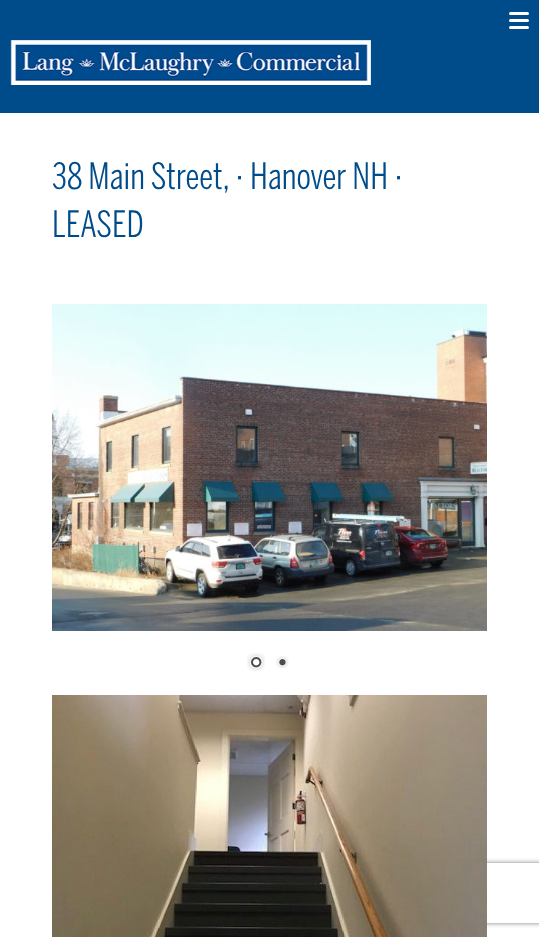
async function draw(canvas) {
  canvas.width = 539
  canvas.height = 937
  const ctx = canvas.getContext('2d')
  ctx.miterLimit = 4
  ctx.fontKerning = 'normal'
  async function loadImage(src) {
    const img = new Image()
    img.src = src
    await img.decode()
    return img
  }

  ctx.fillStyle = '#fff'
  ctx.fillRect(0, 0, 539, 937)
  ctx.fillStyle = '#004c8b'
  ctx.fillRect(0, 0, 539, 113)
  ctx.fillStyle = '#fff'
  ctx.beginPath()
  ctx.roundRect(509, 19, 20, 3, 1.5)
  ctx.fill()
  ctx.beginPath()
  ctx.roundRect(509, 12, 20, 3, 1.5)
  ctx.fill()
  ctx.beginPath()
  ctx.roundRect(509, 26, 20, 3, 1.5)
  ctx.fill()
  ctx.drawImage(await loadImage('image0.png'), 10, 40, 361, 45)
  ctx.font = '36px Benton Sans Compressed'
  ctx.fillStyle = '#004c8b'
  ctx.fillText('38 Main Street, · Hanover NH ·', 52, 189)
  ctx.fillText('LEASED', 52, 237)
  ctx.drawImage(await loadImage('image1.png'), 52, 304, 435, 327)
  ctx.drawImage(await loadImage('image2.png'), 247, 653, 18, 18)
  ctx.drawImage(await loadImage('image3.png'), 276, 656, 13, 12)
  ctx.drawImage(await loadImage('image4.png'), 52, 695, 435, 242)
  ctx.save()
  ctx.beginPath()
  ctx.moveTo(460, 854)
  ctx.lineTo(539, 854)
  ctx.lineTo(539, 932)
  ctx.lineTo(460, 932)
  ctx.closePath()
  ctx.moveTo(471, 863)
  ctx.lineTo(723, 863)
  ctx.bezierCurveTo(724, 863, 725, 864, 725, 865)
  ctx.lineTo(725, 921)
  ctx.bezierCurveTo(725, 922, 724, 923, 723, 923)
  ctx.lineTo(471, 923)
  ctx.bezierCurveTo(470, 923, 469, 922, 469, 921)
  ctx.lineTo(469, 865)
  ctx.bezierCurveTo(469, 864, 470, 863, 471, 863)
  ctx.closePath()
  ctx.clip('evenodd')
  ctx.fillStyle = '#808080'
  ctx.filter = 'blur(2.5px)'
  ctx.beginPath()
  ctx.roundRect(469, 863, 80, 60, 2)
  ctx.fill()
  ctx.filter = 'none'
  ctx.restore()
}

draw(document.querySelector('canvas'))
